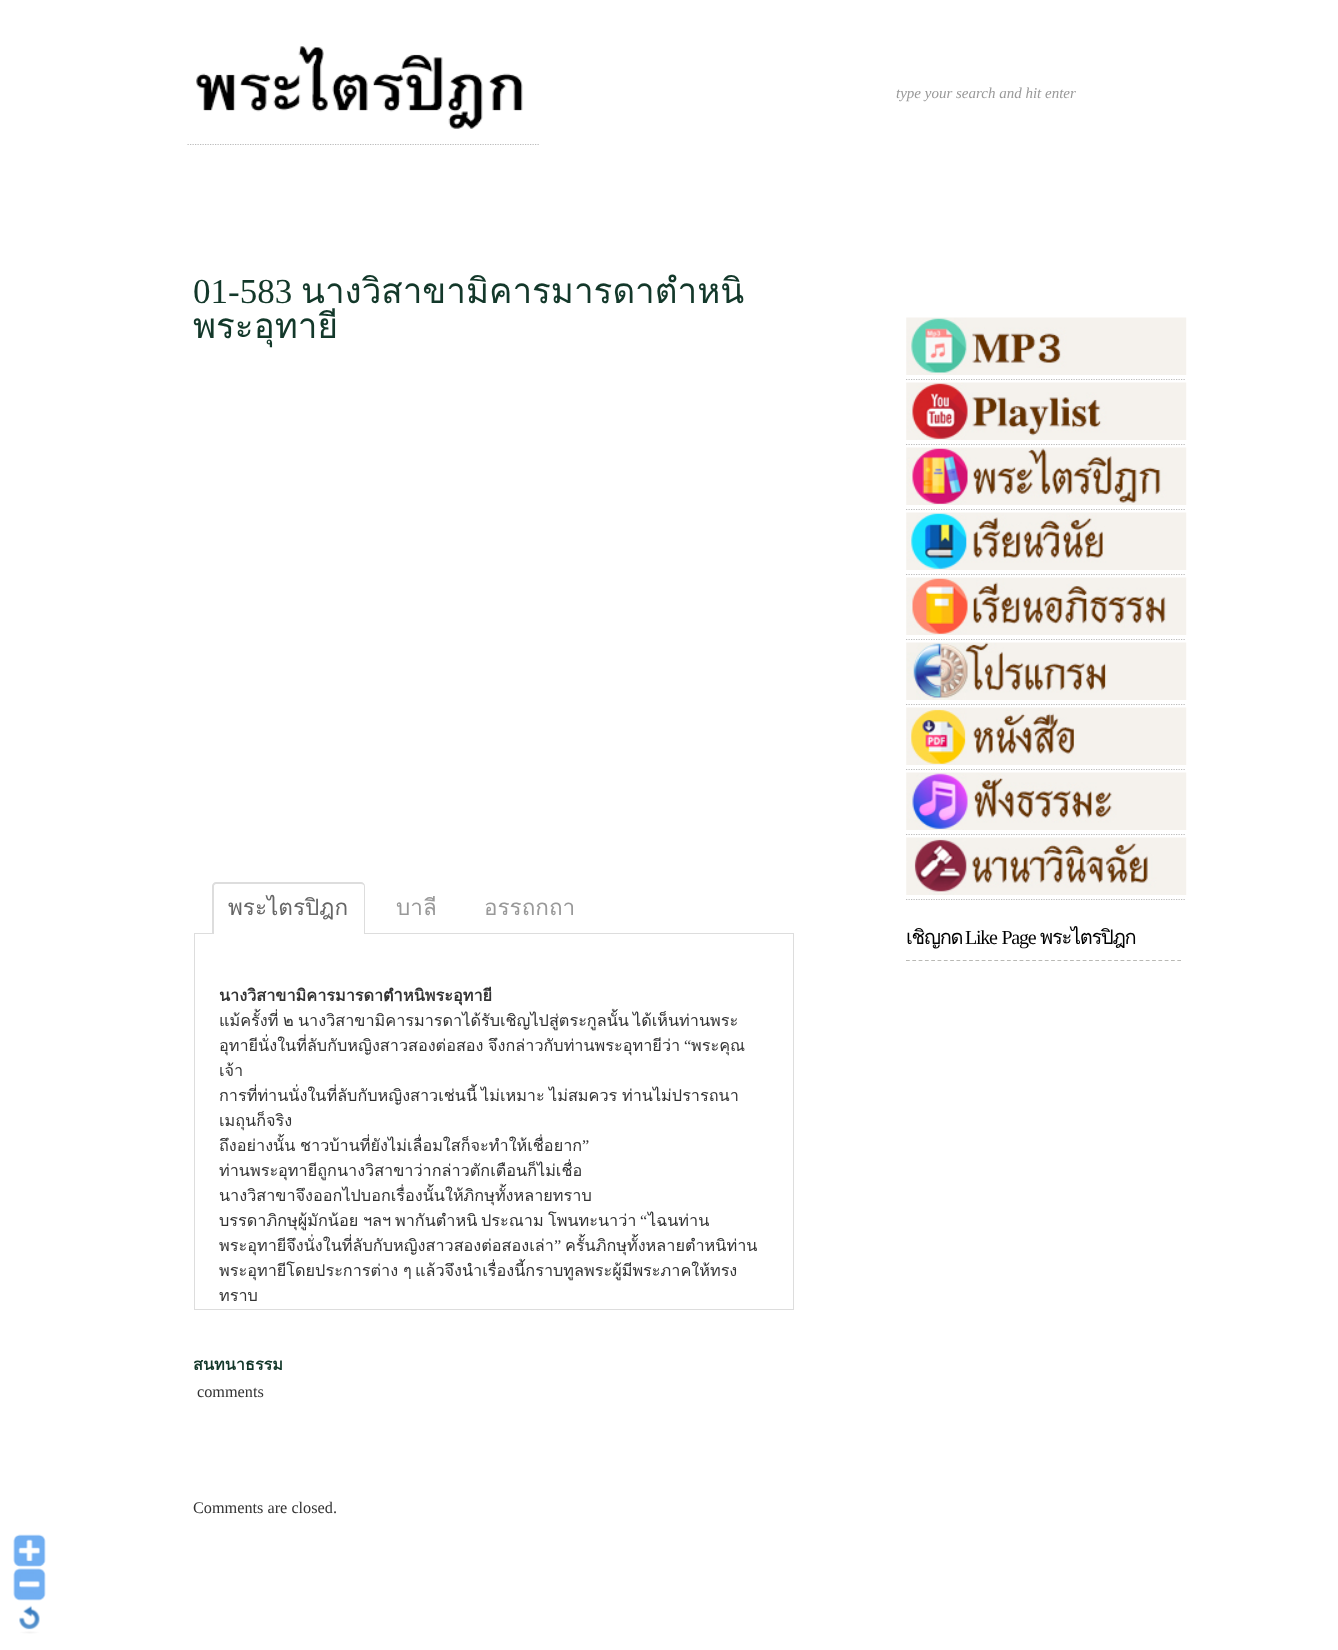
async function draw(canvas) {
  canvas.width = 1338
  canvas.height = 1650
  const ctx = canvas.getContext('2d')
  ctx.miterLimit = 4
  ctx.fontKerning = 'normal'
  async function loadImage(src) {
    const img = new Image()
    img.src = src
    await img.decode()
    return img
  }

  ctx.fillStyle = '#fff'
  ctx.fillRect(0, 0, 1338, 1650)
  ctx.drawImage(await loadImage('image0.png'), 196, 46, 327, 83)
  ctx.font = 'italic 15px Liberation Serif'
  ctx.fillStyle = '#999'
  ctx.fillText('type your search and hit enter', 896, 98)
  ctx.beginPath()
  ctx.moveTo(187.5, 144.5)
  ctx.lineTo(539, 144.5)
  ctx.strokeStyle = '#bbb'
  ctx.lineWidth = 1.2
  ctx.setLineDash([1.25, 1.25])
  ctx.stroke()
  ctx.font = '35px Liberation Serif'
  ctx.fillStyle = '#13382a'
  ctx.fillText('01-583', 193, 303)
  ctx.font = '35px Loma'
  ctx.fillText('นางวิสาขามิคารมารดาตำหนิ', 301, 303)
  ctx.fillText('พระอุทายี', 193, 338)
  ctx.strokeStyle = '#ddd'
  ctx.lineWidth = 1
  ctx.setLineDash([])
  ctx.strokeRect(194.5, 933.5, 599, 376)
  ctx.fillStyle = '#fff'
  ctx.beginPath()
  ctx.roundRect(213, 883, 152, 51, [4, 4, 0, 0])
  ctx.fill()
  ctx.fillStyle = '#ddd'
  ctx.beginPath()
  ctx.moveTo(216, 882)
  ctx.lineTo(361, 882)
  ctx.bezierCurveTo(363, 882, 365, 884, 365, 886)
  ctx.lineTo(365, 934)
  ctx.lineTo(212, 934)
  ctx.lineTo(212, 886)
  ctx.bezierCurveTo(212, 884, 214, 882, 216, 882)
  ctx.closePath()
  ctx.moveTo(216, 884)
  ctx.lineTo(361, 884)
  ctx.bezierCurveTo(363, 884, 364, 885, 364, 886)
  ctx.lineTo(364, 934)
  ctx.lineTo(214, 934)
  ctx.lineTo(214, 886)
  ctx.bezierCurveTo(214, 885, 215, 884, 216, 884)
  ctx.closePath()
  ctx.fill('evenodd')
  ctx.font = '22.5px Loma'
  ctx.fillStyle = '#666'
  ctx.fillText('พระไตรปิฎก', 228, 915)
  ctx.fillStyle = '#999'
  ctx.fillText('บาลี', 396, 915)
  ctx.fillText('อรรถกถา', 484, 915)
  ctx.font = 'bold 16.25px Loma'
  ctx.fillStyle = '#333'
  ctx.fillText('นางวิสาขามิคารมารดาตำหนิพระอุทายี', 219, 1001)
  ctx.font = '16.25px Loma'
  ctx.fillText('แม้ครั้งที่', 219, 1026)
  ctx.fillText('๒', 283, 1026)
  ctx.fillText('นางวิสาขามิคารมารดาได้รับเชิญไปสู่ตระกูลนั้น', 298, 1026)
  ctx.fillText('ได้เห็นท่านพระ', 633, 1026)
  ctx.fillText('อุทายีนั่งในที่ลับกับหญิงสาวสองต่อสอง', 219, 1051)
  ctx.fillText('จึงกล่าวกับท่านพระอุทายีว่า', 488, 1051)
  ctx.font = '16.25px Liberation Serif'
  ctx.fillText('“', 684, 1051)
  ctx.font = '16.25px Loma'
  ctx.fillText('พระคุณ', 691, 1051)
  ctx.fillText('เจ้า', 219, 1076)
  ctx.fillText('การที่ท่านนั่งในที่ลับกับหญิงสาวเช่นนี้', 219, 1101)
  ctx.fillText('ไม่เหมาะ', 481, 1101)
  ctx.fillText('ไม่สมควร', 549, 1101)
  ctx.fillText('ท่านไม่ปรารถนา', 622, 1101)
  ctx.fillText('เมถุนก็จริง', 219, 1126)
  ctx.fillText('ถึงอย่างนั้น', 219, 1151)
  ctx.fillText('ชาวบ้านที่ยังไม่เลื่อมใสก็จะทำให้เชื่อยาก', 300, 1151)
  ctx.font = '16.25px Liberation Serif'
  ctx.fillText('”', 582, 1151)
  ctx.font = '16.25px Loma'
  ctx.fillText('ท่านพระอุทายีถูกนางวิสาขาว่ากล่าวตักเตือนก็ไม่เชื่อ', 219, 1176)
  ctx.fillText('นางวิสาขาจึงออกไปบอกเรื่องนั้นให้ภิกษุทั้งหลายทราบ', 219, 1201)
  ctx.fillText('บรรดาภิกษุผู้มักน้อย', 219, 1226)
  ctx.fillText('ฯลฯ', 363, 1226)
  ctx.fillText('พากันตำหนิ', 395, 1226)
  ctx.fillText('ประณาม', 481, 1226)
  ctx.fillText('โพนทะนาว่า', 548, 1226)
  ctx.font = '16.25px Liberation Serif'
  ctx.fillText('“', 640, 1226)
  ctx.font = '16.25px Loma'
  ctx.fillText('ไฉนท่าน', 648, 1226)
  ctx.fillText('พระอุทายีจึงนั่งในที่ลับกับหญิงสาวสองต่อสองเล่า', 219, 1251)
  ctx.font = '16.25px Liberation Serif'
  ctx.fillText('”', 554, 1251)
  ctx.font = '16.25px Loma'
  ctx.fillText('ครั้นภิกษุทั้งหลายตำหนิท่าน', 565, 1251)
  ctx.fillText('พระอุทายีโดยประการต่าง', 219, 1276)
  ctx.fillText('ๆ', 403, 1276)
  ctx.fillText('แล้วจึงนำเรื่องนี้กราบทูลพระผู้มีพระภาคให้ทรง', 415, 1276)
  ctx.fillText('ทราบ', 219, 1301)
  ctx.font = 'bold 16.25px Loma'
  ctx.fillStyle = '#13382a'
  ctx.fillText('สนทนาธรรม', 193, 1370)
  ctx.font = '16.25px Liberation Serif'
  ctx.fillStyle = '#333'
  ctx.fillText('comments', 197, 1397)
  ctx.fillText('Comments are closed.', 193, 1513)
  ctx.drawImage(await loadImage('image1.png'), 906, 317, 281, 58)
  ctx.beginPath()
  ctx.moveTo(906, 379.5)
  ctx.lineTo(1186, 379.5)
  ctx.strokeStyle = '#bbb'
  ctx.lineWidth = 1.2
  ctx.setLineDash([1.25, 1.25])
  ctx.stroke()
  ctx.drawImage(await loadImage('image2.png'), 906, 382, 281, 58)
  ctx.beginPath()
  ctx.moveTo(906, 444.5)
  ctx.lineTo(1186, 444.5)
  ctx.stroke()
  ctx.drawImage(await loadImage('image3.png'), 906, 447, 281, 58)
  ctx.beginPath()
  ctx.moveTo(906, 509.5)
  ctx.lineTo(1186, 509.5)
  ctx.stroke()
  ctx.drawImage(await loadImage('image4.png'), 906, 512, 281, 58)
  ctx.beginPath()
  ctx.moveTo(906, 574.5)
  ctx.lineTo(1186, 574.5)
  ctx.stroke()
  ctx.drawImage(await loadImage('image5.png'), 906, 577, 281, 58)
  ctx.beginPath()
  ctx.moveTo(906, 639.5)
  ctx.lineTo(1186, 639.5)
  ctx.stroke()
  ctx.drawImage(await loadImage('image6.png'), 906, 642, 281, 58)
  ctx.beginPath()
  ctx.moveTo(906, 704.5)
  ctx.lineTo(1186, 704.5)
  ctx.stroke()
  ctx.drawImage(await loadImage('image7.png'), 906, 707, 281, 58)
  ctx.beginPath()
  ctx.moveTo(906, 769.5)
  ctx.lineTo(1186, 769.5)
  ctx.stroke()
  ctx.drawImage(await loadImage('image8.png'), 906, 772, 281, 58)
  ctx.beginPath()
  ctx.moveTo(906, 834.5)
  ctx.lineTo(1186, 834.5)
  ctx.stroke()
  ctx.drawImage(await loadImage('image9.png'), 906, 837, 281, 58)
  ctx.beginPath()
  ctx.moveTo(906, 899.5)
  ctx.lineTo(1186, 899.5)
  ctx.stroke()
  ctx.beginPath()
  ctx.moveTo(906, 960.5)
  ctx.lineTo(1181, 960.5)
  ctx.strokeStyle = '#b9b9b5'
  ctx.setLineDash([3.75, 2.56])
  ctx.stroke()
  ctx.letterSpacing = '-1.25px'
  ctx.font = '20px Loma'
  ctx.fillStyle = '#000'
  ctx.fillText('เชิญกด', 906, 944)
  ctx.wordSpacing = '1px'
  ctx.font = '20px Liberation Serif'
  ctx.fillText('Like Page', 965, 944)
  ctx.wordSpacing = '0px'
  ctx.font = '20px Loma'
  ctx.fillText('พระไตรปิฎก', 1040, 944)
  ctx.drawImage(await loadImage('image10.png'), 13, 1534, 33, 33)
  ctx.drawImage(await loadImage('image11.png'), 13, 1568, 33, 33)
  ctx.drawImage(await loadImage('image12.png'), 19, 1605, 21, 29)
}

draw(document.querySelector('canvas'))
